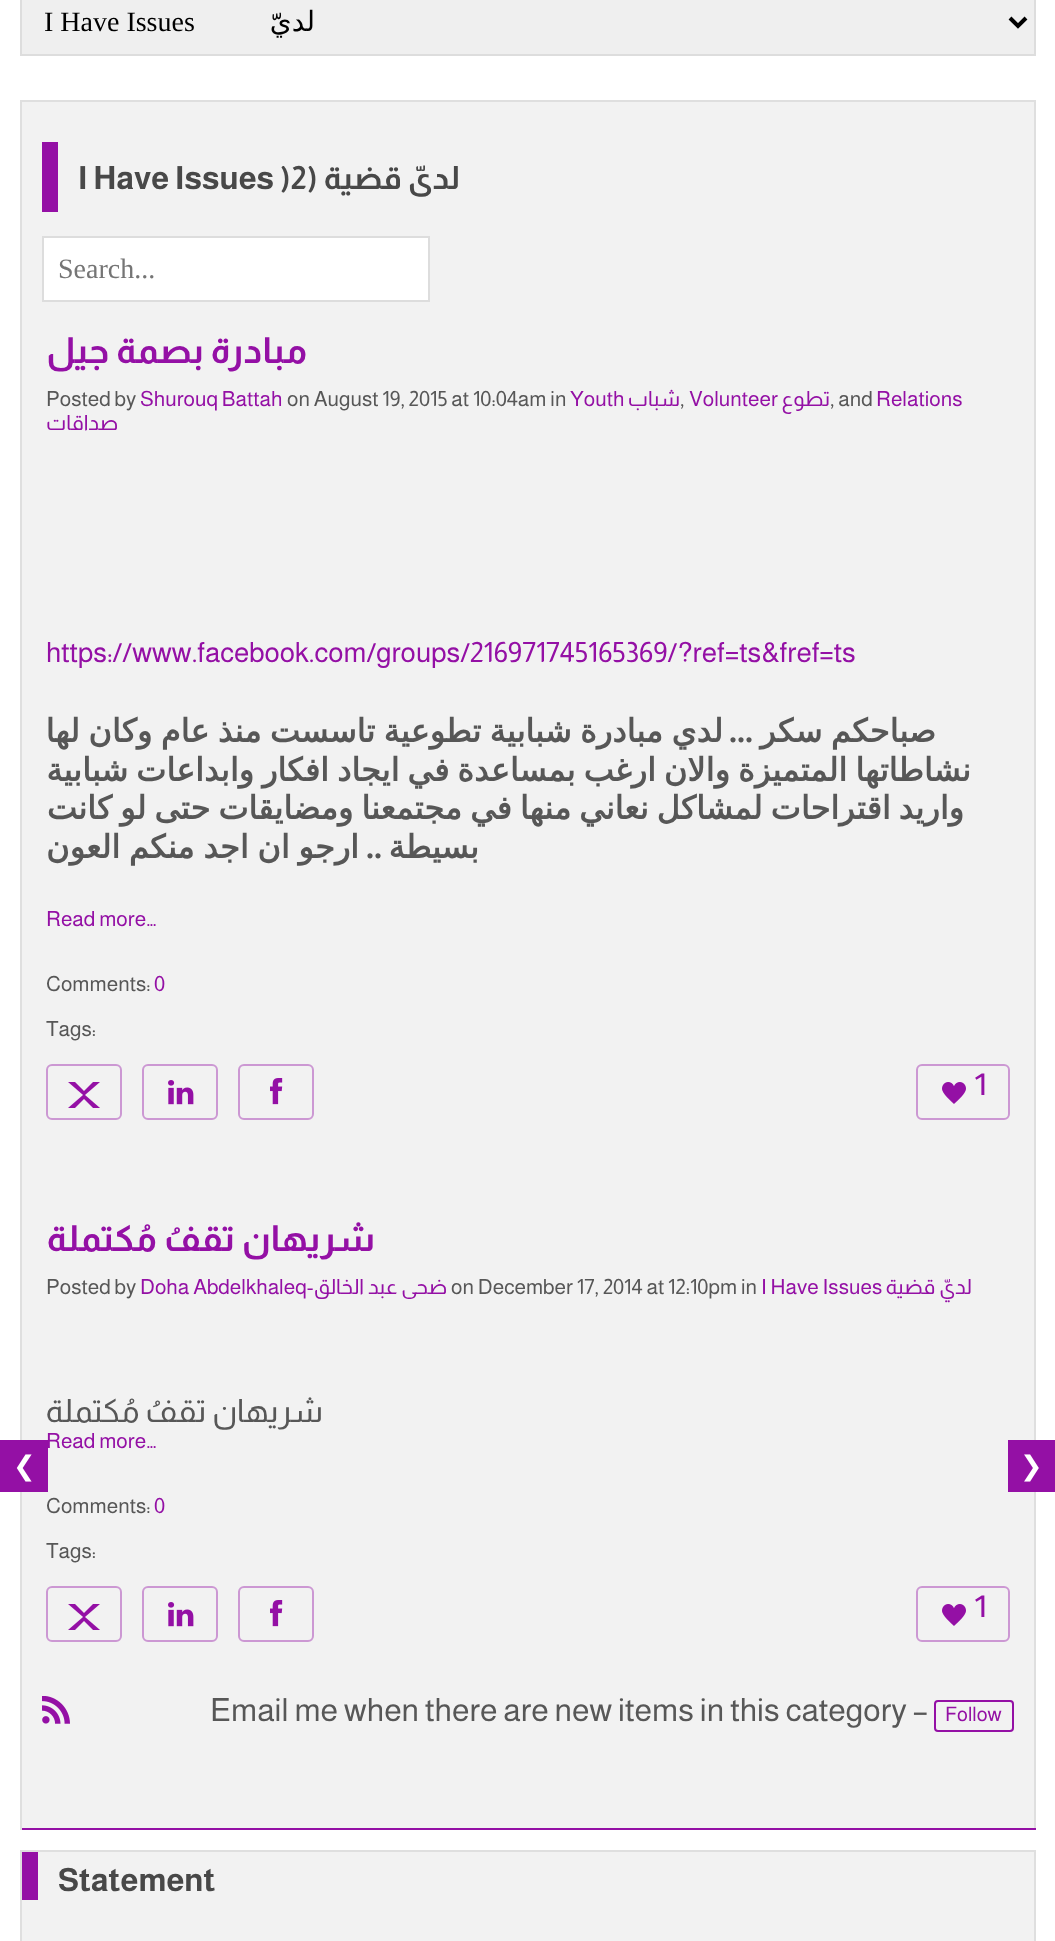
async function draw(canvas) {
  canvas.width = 1055
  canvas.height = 1941
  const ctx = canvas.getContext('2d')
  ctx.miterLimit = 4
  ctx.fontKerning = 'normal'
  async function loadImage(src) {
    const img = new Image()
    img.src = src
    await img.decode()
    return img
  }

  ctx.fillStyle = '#fff'
  ctx.fillRect(0, 0, 1055, 1941)
  ctx.fillStyle = '#efefef'
  ctx.beginPath()
  ctx.rect(21, -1, 1014, 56)
  ctx.fill()
  ctx.strokeStyle = '#ddd'
  ctx.lineWidth = 2
  ctx.stroke()
  ctx.beginPath()
  ctx.moveTo(1010, 18)
  ctx.lineTo(1018, 26)
  ctx.lineTo(1026, 18)
  ctx.strokeStyle = '#000'
  ctx.lineWidth = 4
  ctx.stroke()
  ctx.font = '28px Liberation Serif'
  ctx.fillStyle = '#000'
  ctx.fillText('I Have Issues', 44, 31)
  ctx.direction = 'rtl'
  ctx.font = '28px DejaVu Sans'
  ctx.fillText('لديّ', 315, 31)
  ctx.fillStyle = '#f2f2f2'
  ctx.fillRect(22, 102, 1012, 1726)
  ctx.fillStyle = '#dfdfdf'
  ctx.fillRect(20, 100, 1016, 2)
  ctx.fillRect(1034, 100, 2, 1730)
  ctx.fillStyle = '#9410a5'
  ctx.fillRect(20, 1828, 1016, 2)
  ctx.fillStyle = '#dfdfdf'
  ctx.fillRect(20, 100, 2, 1730)
  ctx.fillStyle = '#9410a5'
  ctx.fillRect(42, 142, 16, 70)
  ctx.direction = 'ltr'
  ctx.font = 'bold 32px Almarai'
  ctx.fillStyle = '#484848'
  ctx.fillText('I Have Issues )2', 78, 189)
  ctx.save()
  ctx.beginPath()
  ctx.rect(78, 160, 936, 38)
  ctx.clip()
  ctx.direction = 'rtl'
  ctx.fillText('لديّ قضية (', 460, 189)
  ctx.restore()
  ctx.fillStyle = '#fff'
  ctx.beginPath()
  ctx.rect(43, 237, 386, 64)
  ctx.fill()
  ctx.strokeStyle = '#ddd'
  ctx.lineWidth = 2
  ctx.stroke()
  ctx.font = '28px Liberation Serif'
  ctx.fillStyle = '#757575'
  ctx.fillText('Search...', 58, 278)
  ctx.direction = 'rtl'
  ctx.font = 'bold 36px Almarai'
  ctx.fillStyle = '#9410a5'
  ctx.fillText('مبادرة بصمة جيل', 307, 363)
  ctx.direction = 'ltr'
  ctx.font = '21px Almarai'
  ctx.fillStyle = '#575757'
  ctx.fillText('Posted by', 46, 406)
  ctx.fillStyle = '#9410a5'
  ctx.fillText('Shurouq Battah', 140, 406)
  ctx.fillStyle = '#575757'
  ctx.fillText('on August 19, 2015 at 10:04am in', 287, 406)
  ctx.fillStyle = '#9410a5'
  ctx.fillText('Youth', 570, 406)
  ctx.direction = 'rtl'
  ctx.fillText('شباب', 680, 406)
  ctx.direction = 'ltr'
  ctx.fillStyle = '#575757'
  ctx.fillText(',', 680, 406)
  ctx.fillStyle = '#9410a5'
  ctx.fillText('Volunteer', 689, 406)
  ctx.direction = 'rtl'
  ctx.fillText('تطوع', 830, 406)
  ctx.direction = 'ltr'
  ctx.fillStyle = '#575757'
  ctx.fillText(', and', 830, 406)
  ctx.fillStyle = '#9410a5'
  ctx.fillText('Relations', 876, 406)
  ctx.direction = 'rtl'
  ctx.fillText('صداقات', 118, 430)
  ctx.direction = 'ltr'
  ctx.font = '28px Almarai'
  ctx.fillText('https://www.facebook.com/groups/216971745165369/?ref=ts&fref=ts', 46, 662)
  ctx.wordSpacing = '-1.75px'
  ctx.direction = 'rtl'
  ctx.font = 'bold 32px DejaVu Sans'
  ctx.fillStyle = '#575757'
  ctx.fillText('لدي مبادرة شبابية تطوعية تاسست منذ عام وكان لها', 723, 742)
  ctx.wordSpacing = '0px'
  ctx.font = 'bold 32px Liberation Serif'
  ctx.fillText('...', 753, 742)
  ctx.wordSpacing = '-1.75px'
  ctx.font = 'bold 32px DejaVu Sans'
  ctx.fillText('صباحكم سكر', 936, 742)
  ctx.wordSpacing = '-2.25px'
  ctx.fillText('نشاطاتها المتميزة والان ارغب بمساعدة في ايجاد افكار وابداعات شبابية', 971, 781)
  ctx.fillText('واريد اقتراحات لمشاكل نعاني منها في مجتمعنا ومضايقات حتى لو كانت', 964, 819)
  ctx.wordSpacing = '-1.5px'
  ctx.fillText('ارجو ان اجد منكم العون', 359, 858)
  ctx.wordSpacing = '0px'
  ctx.font = 'bold 32px Liberation Serif'
  ctx.fillText('..', 382, 858)
  ctx.font = 'bold 32px DejaVu Sans'
  ctx.fillText('بسيطة', 479, 858)
  ctx.direction = 'ltr'
  ctx.font = '21px Almarai'
  ctx.fillStyle = '#9410a5'
  ctx.fillText('Read more…', 46, 926)
  ctx.fillStyle = '#575757'
  ctx.fillText('Comments:', 46, 991)
  ctx.fillStyle = '#9410a5'
  ctx.fillText('0', 154, 991)
  ctx.fillStyle = '#575757'
  ctx.fillText('Tags:', 46, 1036)
  ctx.beginPath()
  ctx.roundRect(47, 1065, 74, 54, 5)
  ctx.strokeStyle = '#cc98d3'
  ctx.stroke()
  ctx.drawImage(await loadImage('image0.png'), 68, 1082, 32, 26)
  ctx.beginPath()
  ctx.roundRect(143, 1065, 74, 54, 5)
  ctx.stroke()
  ctx.drawImage(await loadImage('image1.png'), 168, 1080, 26, 25)
  ctx.beginPath()
  ctx.roundRect(239, 1065, 74, 54, 5)
  ctx.stroke()
  ctx.drawImage(await loadImage('image2.png'), 270, 1078, 13, 27)
  ctx.beginPath()
  ctx.roundRect(917, 1065, 92, 54, 5)
  ctx.stroke()
  ctx.drawImage(await loadImage('image3.png'), 942, 1082, 24, 22)
  ctx.font = '32px Fira Sans'
  ctx.fillStyle = '#9410a5'
  ctx.fillText('1', 974, 1095)
  ctx.direction = 'rtl'
  ctx.font = 'bold 36px Almarai'
  ctx.fillText('شريهان تقفُ مُكتملة', 375, 1251)
  ctx.direction = 'ltr'
  ctx.font = '21px Almarai'
  ctx.fillStyle = '#575757'
  ctx.fillText('Posted by', 46, 1294)
  ctx.fillStyle = '#9410a5'
  ctx.fillText('Doha Abdelkhaleq-', 140, 1294)
  ctx.direction = 'rtl'
  ctx.fillText('ضحى عبد الخالق', 447, 1294)
  ctx.direction = 'ltr'
  ctx.fillStyle = '#575757'
  ctx.fillText('on December 17, 2014 at 12:10pm in', 451, 1294)
  ctx.fillStyle = '#9410a5'
  ctx.fillText('I Have Issues', 761, 1294)
  ctx.direction = 'rtl'
  ctx.fillText('لديّ قضية', 972, 1294)
  ctx.font = '32px Almarai'
  ctx.fillStyle = '#575757'
  ctx.fillText('شريهان تقفُ مُكتملة', 323, 1422)
  ctx.direction = 'ltr'
  ctx.font = '21px Almarai'
  ctx.fillStyle = '#9410a5'
  ctx.fillText('Read more…', 46, 1448)
  ctx.fillStyle = '#575757'
  ctx.fillText('Comments:', 46, 1513)
  ctx.fillStyle = '#9410a5'
  ctx.fillText('0', 154, 1513)
  ctx.fillStyle = '#575757'
  ctx.fillText('Tags:', 46, 1558)
  ctx.beginPath()
  ctx.roundRect(47, 1587, 74, 54, 5)
  ctx.stroke()
  ctx.drawImage(await loadImage('image0.png'), 68, 1604, 32, 26)
  ctx.beginPath()
  ctx.roundRect(143, 1587, 74, 54, 5)
  ctx.stroke()
  ctx.drawImage(await loadImage('image1.png'), 168, 1602, 26, 25)
  ctx.beginPath()
  ctx.roundRect(239, 1587, 74, 54, 5)
  ctx.stroke()
  ctx.drawImage(await loadImage('image2.png'), 270, 1600, 13, 27)
  ctx.beginPath()
  ctx.roundRect(917, 1587, 92, 54, 5)
  ctx.stroke()
  ctx.drawImage(await loadImage('image3.png'), 942, 1604, 24, 22)
  ctx.font = '32px Fira Sans'
  ctx.fillStyle = '#9410a5'
  ctx.fillText('1', 974, 1617)
  ctx.drawImage(await loadImage('image4.png'), 42, 1696, 28, 28)
  ctx.font = '32px Almarai'
  ctx.fillStyle = '#575757'
  ctx.fillText('Email me when there are new items in this category –', 210, 1721)
  ctx.beginPath()
  ctx.roundRect(935, 1701, 78, 30, 3)
  ctx.strokeStyle = '#9410a5'
  ctx.stroke()
  ctx.font = '20px Almarai'
  ctx.fillStyle = '#9410a5'
  ctx.fillText('Follow', 945, 1721)
  ctx.fillStyle = '#f2f2f2'
  ctx.fillRect(22, 1852, 1012, 89)
  ctx.fillStyle = '#dfdfdf'
  ctx.fillRect(20, 1850, 1016, 2)
  ctx.fillRect(1034, 1850, 2, 91)
  ctx.fillRect(20, 1850, 2, 91)
  ctx.fillStyle = '#9410a5'
  ctx.fillRect(22, 1852, 16, 48)
  ctx.font = 'bold 32px Almarai'
  ctx.fillStyle = '#484848'
  ctx.fillText('Statement', 58, 1891)
  ctx.fillStyle = '#9410a5'
  ctx.fillRect(0, 1440, 48, 52)
  ctx.font = '27px DejaVu Sans'
  ctx.fillStyle = '#fff'
  ctx.fillText('❮', 13, 1475)
  ctx.fillStyle = '#9410a5'
  ctx.fillRect(1008, 1440, 47, 52)
  ctx.fillStyle = '#fff'
  ctx.fillText('❯', 1020, 1475)
}

draw(document.querySelector('canvas'))
